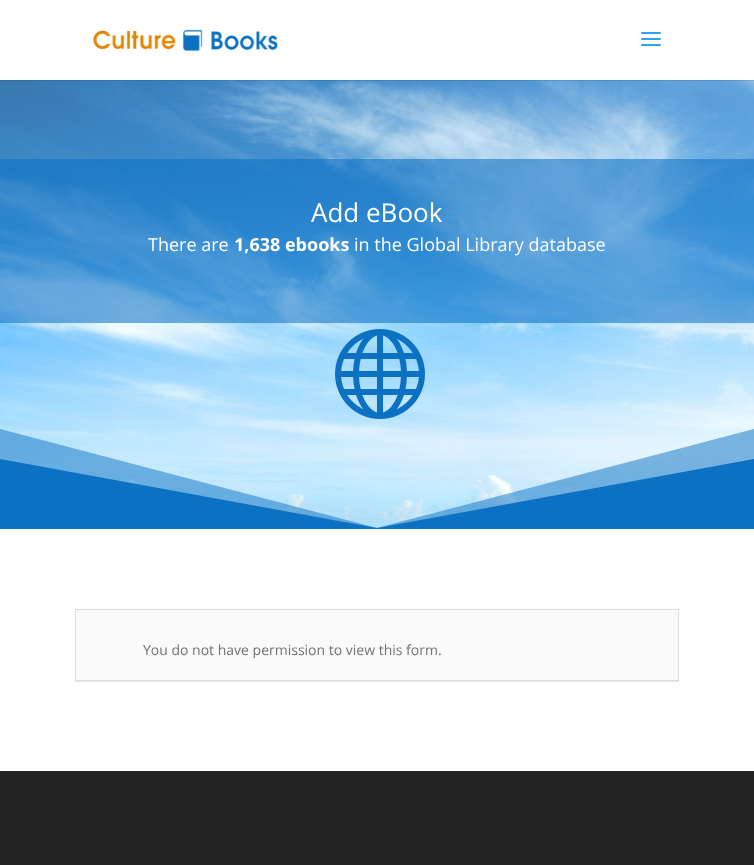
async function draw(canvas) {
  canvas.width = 754
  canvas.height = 865
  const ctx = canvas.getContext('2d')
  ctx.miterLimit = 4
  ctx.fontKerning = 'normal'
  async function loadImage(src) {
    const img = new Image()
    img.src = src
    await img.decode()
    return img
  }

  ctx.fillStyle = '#fff'
  ctx.fillRect(0, 0, 754, 865)
  ctx.drawImage(await loadImage('image2.png'), 0, 80, 754, 448)
  ctx.fillStyle = '#0000001a'
  ctx.fillRect(0, 80, 754, 1)
  ctx.drawImage(await loadImage('image0.png'), 93, 29, 185, 22)
  ctx.drawImage(await loadImage('image1.png'), 641, 32, 20, 14)
  ctx.fillStyle = '#0c71c391'
  ctx.fillRect(0, 159, 754, 164)
  ctx.font = '26px Open Sans'
  ctx.fillStyle = '#fff'
  ctx.fillText('Add eBook', 311, 222)
  ctx.font = '18px Open Sans'
  ctx.fillText('There are', 148, 251)
  ctx.font = 'bold 18px Open Sans'
  ctx.fillText('1,638 ebooks', 234, 251)
  ctx.font = '18px Open Sans'
  ctx.fillText('in the Global Library database', 354, 251)
  ctx.drawImage(await loadImage('image3.png'), 335, 329, 90, 90)
  ctx.fillStyle = '#0c71c380'
  ctx.beginPath()
  ctx.moveTo(377, 528)
  ctx.lineTo(0, 429)
  ctx.lineTo(0, 529)
  ctx.lineTo(754, 529)
  ctx.lineTo(754, 429)
  ctx.closePath()
  ctx.fill()
  ctx.fillStyle = '#0c71c3'
  ctx.beginPath()
  ctx.moveTo(377, 528)
  ctx.lineTo(0, 459)
  ctx.lineTo(0, 529)
  ctx.lineTo(754, 529)
  ctx.lineTo(754, 459)
  ctx.closePath()
  ctx.fill()
  ctx.fillStyle = '#0000001a'
  ctx.filter = 'blur(0.5px)'
  ctx.beginPath()
  ctx.rect(75, 610, 604, 72)
  ctx.fill()
  ctx.filter = 'none'
  ctx.strokeStyle = '#ddd'
  ctx.strokeRect(75.5, 609.5, 603, 71)
  ctx.fillStyle = '#fafafa'
  ctx.fillRect(76, 610, 602, 70)
  ctx.font = '14px Open Sans'
  ctx.fillStyle = '#737373'
  ctx.fillText('You do not have permission to view this form.', 143, 655)
  ctx.fillStyle = '#222'
  ctx.fillRect(0, 771, 754, 94)
}

draw(document.querySelector('canvas'))
